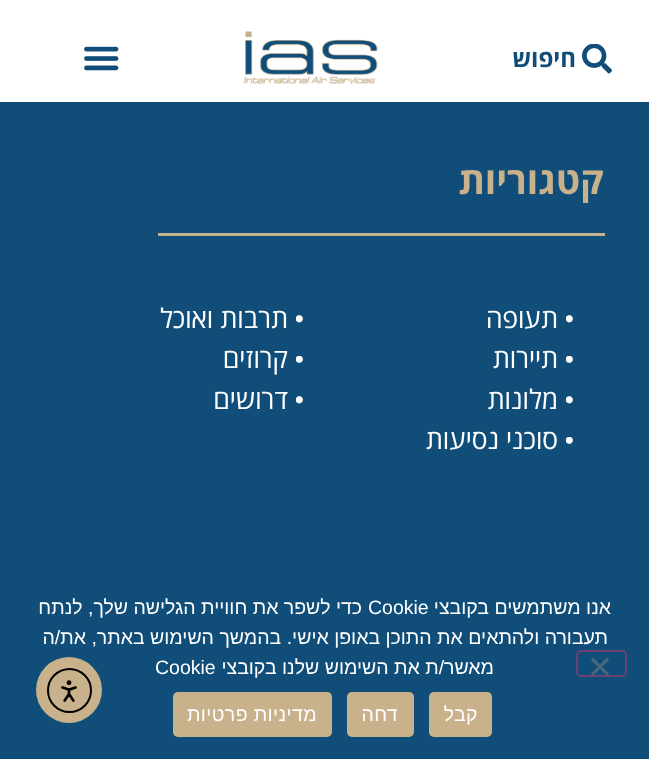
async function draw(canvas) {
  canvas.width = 649
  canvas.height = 759
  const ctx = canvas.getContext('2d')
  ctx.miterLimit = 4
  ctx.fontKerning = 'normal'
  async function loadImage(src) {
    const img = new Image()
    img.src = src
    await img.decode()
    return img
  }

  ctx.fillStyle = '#104e79'
  ctx.fillRect(0, 0, 649, 759)
  ctx.fillStyle = '#fff'
  ctx.fillRect(0, 0, 649, 102)
  ctx.drawImage(await loadImage('image0.png'), 582, 44, 30, 30)
  ctx.direction = 'rtl'
  ctx.font = 'bold 24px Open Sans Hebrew'
  ctx.fillStyle = '#104e79'
  ctx.fillText('חיפוש', 576, 67)
  ctx.drawImage(await loadImage('image1.png'), 243, 31, 135, 53)
  ctx.drawImage(await loadImage('image2.png'), 84, 46, 35, 25)
  ctx.font = 'bold 37.5px Open Sans Hebrew'
  ctx.fillStyle = '#c8b18b'
  ctx.fillText('קטגוריות', 604, 194)
  ctx.fillRect(158, 233, 447, 3)
  ctx.drawImage(await loadImage('image3.png'), 566, 315, 7, 8)
  ctx.font = '27px Open Sans Hebrew'
  ctx.fillStyle = '#fff'
  ctx.fillText('תעופה', 558, 328)
  ctx.drawImage(await loadImage('image4.png'), 566, 356, 7, 7)
  ctx.fillText('תיירות', 558, 368)
  ctx.drawImage(await loadImage('image3.png'), 566, 396, 7, 8)
  ctx.fillText('מלונות', 558, 409)
  ctx.drawImage(await loadImage('image4.png'), 566, 437, 7, 7)
  ctx.fillText('סוכני נסיעות', 558, 449)
  ctx.drawImage(await loadImage('image3.png'), 296, 315, 7, 8)
  ctx.fillText('תרבות ואוכל', 288, 328)
  ctx.drawImage(await loadImage('image4.png'), 296, 356, 7, 7)
  ctx.fillText('קרוזים', 288, 368)
  ctx.drawImage(await loadImage('image3.png'), 296, 396, 7, 8)
  ctx.fillText('דרושים', 288, 409)
  ctx.font = '19.5px Liberation Sans'
  ctx.fillText('אנו משתמשים בקובצי', 611, 614)
  ctx.direction = 'ltr'
  ctx.fillText('Cookie', 368, 614)
  ctx.direction = 'rtl'
  ctx.fillText('כדי לשפר את חוויית הגלישה שלך, לנתח', 362, 614)
  ctx.fillText('תעבורה ולהתאים את התוכן באופן אישי. בהמשך השימוש באתר, את/ה', 608, 644)
  ctx.fillText('מאשר/ת את השימוש שלנו בקובצי', 494, 674)
  ctx.direction = 'ltr'
  ctx.fillText('Cookie', 155, 674)
  ctx.beginPath()
  ctx.roundRect(577, 651, 49, 25, 4)
  ctx.strokeStyle = '#6e4170'
  ctx.lineWidth = 2
  ctx.stroke()
  ctx.fillStyle = '#48677d'
  ctx.beginPath()
  ctx.moveTo(607, 657.5)
  ctx.lineTo(609, 660)
  ctx.lineTo(593, 676)
  ctx.lineTo(591, 673.5)
  ctx.closePath()
  ctx.fill()
  ctx.beginPath()
  ctx.moveTo(591, 660)
  ctx.lineTo(593, 657.5)
  ctx.lineTo(609, 673.5)
  ctx.lineTo(607, 676)
  ctx.closePath()
  ctx.fill()
  ctx.fillStyle = '#c8b18b'
  ctx.beginPath()
  ctx.roundRect(429, 692, 63, 45, 5)
  ctx.fill()
  ctx.letterSpacing = '0.4px'
  ctx.direction = 'rtl'
  ctx.fillStyle = '#fff'
  ctx.fillText('קבל', 478, 721)
  ctx.fillStyle = '#c8b18b'
  ctx.beginPath()
  ctx.roundRect(347, 692, 67, 45, 5)
  ctx.fill()
  ctx.fillStyle = '#fff'
  ctx.fillText('דחה', 398, 721)
  ctx.fillStyle = '#c8b18b'
  ctx.beginPath()
  ctx.roundRect(173, 692, 159, 45, 5)
  ctx.fill()
  ctx.fillStyle = '#fff'
  ctx.fillText('מדיניות פרטיות', 317, 721)
  ctx.fillStyle = '#c8b18b'
  ctx.beginPath()
  ctx.arc(69, 690, 33, 0, 2 * Math.PI)
  ctx.fill()
  ctx.beginPath()
  ctx.arc(69.5, 690.5, 21.5, 0, 2 * Math.PI)
  ctx.strokeStyle = '#000'
  ctx.stroke()
  ctx.drawImage(await loadImage('image5.png'), 61, 680, 16, 22)
}

draw(document.querySelector('canvas'))
